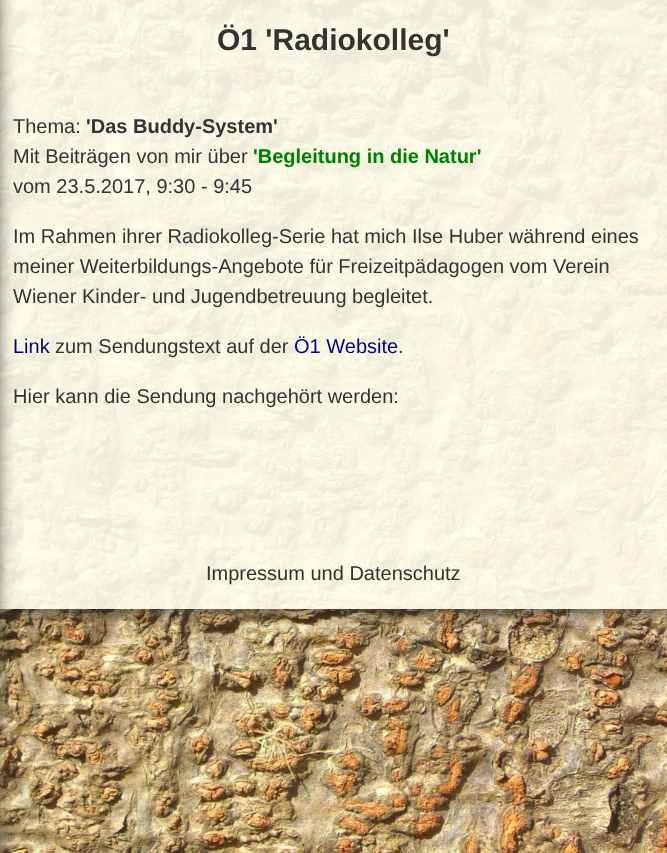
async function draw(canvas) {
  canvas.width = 667
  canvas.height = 853
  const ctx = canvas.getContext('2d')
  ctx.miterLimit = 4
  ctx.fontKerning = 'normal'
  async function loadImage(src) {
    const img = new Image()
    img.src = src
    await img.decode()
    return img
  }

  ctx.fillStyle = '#fff'
  ctx.fillRect(0, 0, 667, 853)
  ctx.drawImage(await loadImage('image0.png'), 0, 0, 667, 853)
  ctx.save()
  ctx.beginPath()
  ctx.moveTo(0, 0)
  ctx.lineTo(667, 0)
  ctx.lineTo(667, 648)
  ctx.lineTo(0, 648)
  ctx.closePath()
  ctx.moveTo(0, -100)
  ctx.lineTo(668, -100)
  ctx.lineTo(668, 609)
  ctx.lineTo(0, 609)
  ctx.closePath()
  ctx.clip('evenodd')
  ctx.fillStyle = '#222'
  ctx.filter = 'blur(12.5px)'
  ctx.beginPath()
  ctx.rect(1, -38, 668, 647)
  ctx.fill()
  ctx.filter = 'none'
  ctx.restore()
  ctx.fillStyle = '#ffffeee6'
  ctx.fillRect(0, 0, 667, 534)
  ctx.fillRect(0, 534, 667, 75)
  ctx.fillStyle = '#333'
  ctx.filter = 'blur(9.5px)'
  ctx.beginPath()
  ctx.rect(-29, -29, 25, 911)
  ctx.fill()
  ctx.filter = 'none'
  ctx.font = 'bold 30px Liberation Sans'
  ctx.fillText('Ö1 \'Radiokolleg\'', 217, 50)
  ctx.font = '20px Liberation Sans'
  ctx.fillText('Thema:', 13, 133)
  ctx.font = 'bold 20px Liberation Sans'
  ctx.fillText('\'Das Buddy-System\'', 86, 133)
  ctx.font = '20px Liberation Sans'
  ctx.fillText('Mit Beiträgen von mir über', 13, 163)
  ctx.font = 'bold 20px Liberation Sans'
  ctx.fillStyle = '#008000'
  ctx.fillText('\'Begleitung in die Natur\'', 253, 163)
  ctx.font = '20px Liberation Sans'
  ctx.fillStyle = '#333'
  ctx.fillText('vom 23.5.2017, 9:30 - 9:45', 13, 193)
  ctx.fillText('Im Rahmen ihrer Radiokolleg-Serie hat mich Ilse Huber während eines', 13, 243)
  ctx.fillText('meiner Weiterbildungs-Angebote für Freizeitpädagogen vom Verein', 13, 273)
  ctx.fillText('Wiener Kinder- und Jugendbetreuung begleitet.', 13, 303)
  ctx.fillStyle = '#000080'
  ctx.fillText('Link', 13, 353)
  ctx.fillStyle = '#333'
  ctx.fillText('zum Sendungstext auf der', 55, 353)
  ctx.fillStyle = '#000080'
  ctx.fillText('Ö1 Website', 294, 353)
  ctx.fillStyle = '#333'
  ctx.fillText('.', 398, 353)
  ctx.fillText('Hier kann die Sendung nachgehört werden:', 13, 403)
  ctx.fillStyle = '#32312d'
  ctx.fillText('Impressum und Datenschutz', 206, 580)
}

draw(document.querySelector('canvas'))
